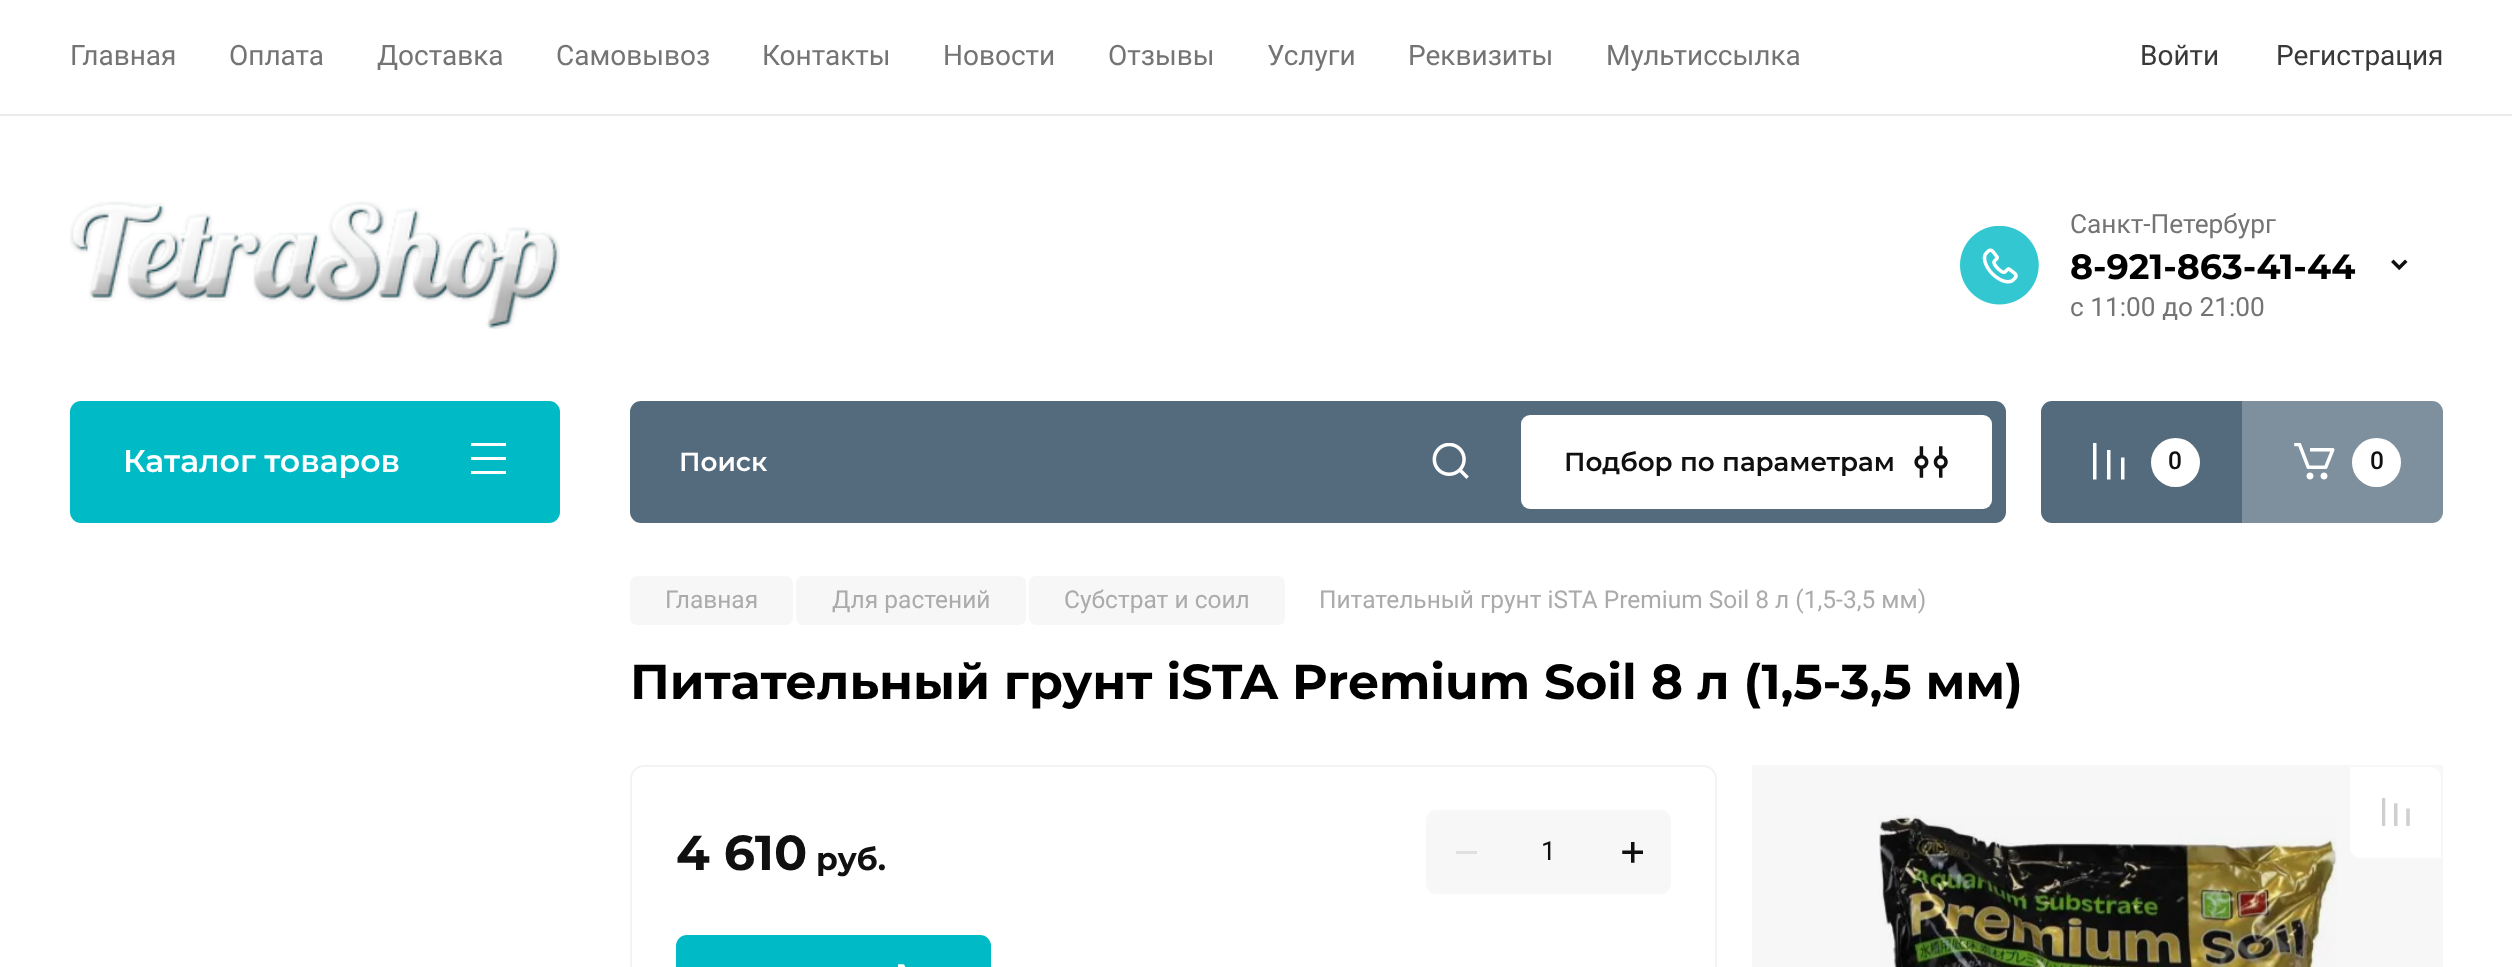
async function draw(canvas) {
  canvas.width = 2512
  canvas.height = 967
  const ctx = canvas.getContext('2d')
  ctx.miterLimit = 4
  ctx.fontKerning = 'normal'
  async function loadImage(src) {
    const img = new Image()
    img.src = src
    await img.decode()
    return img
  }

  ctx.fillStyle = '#fff'
  ctx.fillRect(0, 0, 2512, 967)
  ctx.fillStyle = '#ebebeb'
  ctx.fillRect(0, 114, 2512, 2)
  ctx.font = '28px Roboto'
  ctx.fillStyle = '#747474'
  ctx.fillText('Главная', 70, 65)
  ctx.fillText('Оплата', 229, 65)
  ctx.fillText('Доставка', 377, 65)
  ctx.fillText('Самовывоз', 556, 65)
  ctx.fillText('Контакты', 762, 65)
  ctx.fillText('Новости', 943, 65)
  ctx.fillText('Отзывы', 1108, 65)
  ctx.fillText('Услуги', 1267, 65)
  ctx.fillText('Реквизиты', 1408, 65)
  ctx.fillText('Мультиссылка', 1606, 65)
  ctx.fillStyle = '#393939'
  ctx.fillText('Войти', 2140, 65)
  ctx.fillText('Регистрация', 2276, 65)
  ctx.drawImage(await loadImage('image0.png'), 70, 201, 490, 128)
  ctx.drawImage(await loadImage('image1.png'), 1960, 226, 79, 79)
  ctx.font = '26.25px Roboto'
  ctx.fillStyle = '#747474'
  ctx.fillText('Санкт-Петербург', 2070, 233)
  ctx.font = 'bold 35px Montserrat'
  ctx.fillStyle = '#000'
  ctx.fillText('8-921-863-41-44', 2070, 279)
  ctx.font = '26.25px Roboto'
  ctx.fillStyle = '#747474'
  ctx.fillText('с 11:00 до 21:00', 2070, 316)
  ctx.drawImage(await loadImage('image2.png'), 2391, 259, 17, 12)
  ctx.fillStyle = '#00bac6'
  ctx.beginPath()
  ctx.roundRect(70, 401, 490, 122, 11)
  ctx.fill()
  ctx.font = '600 31.5px Montserrat'
  ctx.fillStyle = '#fff'
  ctx.fillText('Каталог товаров', 123, 472)
  ctx.beginPath()
  ctx.moveTo(471, 443)
  ctx.lineTo(506, 443)
  ctx.lineTo(506, 446)
  ctx.lineTo(471, 446)
  ctx.closePath()
  ctx.moveTo(471, 457)
  ctx.lineTo(506, 457)
  ctx.lineTo(506, 460)
  ctx.lineTo(471, 460)
  ctx.closePath()
  ctx.moveTo(506, 471)
  ctx.lineTo(471, 471)
  ctx.lineTo(471, 474)
  ctx.lineTo(506, 474)
  ctx.closePath()
  ctx.fill()
  ctx.fillStyle = '#536b7c'
  ctx.beginPath()
  ctx.roundRect(630, 401, 1376, 122, 11)
  ctx.fill()
  ctx.font = '600 26.25px Montserrat'
  ctx.fillStyle = '#fff'
  ctx.fillText('Поиск', 679, 471)
  ctx.drawImage(await loadImage('image3.png'), 1432, 443, 37, 36)
  ctx.beginPath()
  ctx.roundRect(1521, 415, 471, 94, 9)
  ctx.fill()
  ctx.fillStyle = '#101010'
  ctx.fillText('Подбор по параметрам', 1564, 471)
  ctx.drawImage(await loadImage('image4.png'), 1914, 446, 34, 32)
  ctx.fillStyle = '#536b7c'
  ctx.beginPath()
  ctx.roundRect(2041, 401, 201, 122, [11, 0, 0, 11])
  ctx.fill()
  ctx.save()
  ctx.beginPath()
  ctx.rect(2093, 443, 32, 37)
  ctx.clip()
  ctx.fillStyle = '#fff'
  ctx.beginPath()
  ctx.moveTo(2124.5, 479.5)
  ctx.lineTo(2124.5, 457.5)
  ctx.lineTo(2121, 457.5)
  ctx.lineTo(2121, 479.5)
  ctx.closePath()
  ctx.moveTo(2110.5, 450)
  ctx.lineTo(2110.5, 479.5)
  ctx.lineTo(2107, 479.5)
  ctx.lineTo(2107, 450)
  ctx.closePath()
  ctx.moveTo(2096.5, 442.5)
  ctx.lineTo(2096.5, 479.5)
  ctx.lineTo(2093, 479.5)
  ctx.lineTo(2093, 442.5)
  ctx.closePath()
  ctx.fill()
  ctx.restore()
  ctx.fillStyle = '#fff'
  ctx.beginPath()
  ctx.arc(2175.5, 462.5, 24.5, 0, 2 * Math.PI)
  ctx.fill()
  ctx.font = '500 24.5px Roboto'
  ctx.fillStyle = '#101010'
  ctx.fillText('0', 2168, 469)
  ctx.fillStyle = '#7e909d'
  ctx.beginPath()
  ctx.roundRect(2242, 401, 201, 122, [0, 11, 11, 0])
  ctx.fill()
  ctx.drawImage(await loadImage('image5.png'), 2294, 443, 41, 37)
  ctx.fillStyle = '#fff'
  ctx.beginPath()
  ctx.arc(2376.5, 462.5, 24.5, 0, 2 * Math.PI)
  ctx.fill()
  ctx.fillStyle = '#101010'
  ctx.fillText('0', 2370, 469)
  ctx.fillStyle = '#f7f7f7'
  ctx.beginPath()
  ctx.roundRect(630, 576, 163, 49, 7)
  ctx.fill()
  ctx.font = '24.5px Roboto'
  ctx.fillStyle = '#ababab'
  ctx.fillText('Главная', 665, 608)
  ctx.fillStyle = '#f7f7f7'
  ctx.beginPath()
  ctx.roundRect(796, 576, 230, 49, 7)
  ctx.fill()
  ctx.fillStyle = '#ababab'
  ctx.fillText('Для растений', 832, 608)
  ctx.fillStyle = '#f7f7f7'
  ctx.beginPath()
  ctx.roundRect(1029, 576, 256, 49, 7)
  ctx.fill()
  ctx.fillStyle = '#ababab'
  ctx.fillText('Субстрат и соил', 1064, 608)
  ctx.fillText('Питательный грунт iSTA Premium Soil 8 л (1,5-3,5 мм)', 1319, 608)
  ctx.font = 'bold 49px Montserrat'
  ctx.fillStyle = '#000'
  ctx.fillText('Питательный грунт iSTA Premium Soil 8 л (1,5-3,5 мм)', 630, 699)
  ctx.beginPath()
  ctx.roundRect(631, 766, 1085, 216, 13)
  ctx.strokeStyle = '#f1f3f5'
  ctx.lineWidth = 2
  ctx.stroke()
  ctx.fillStyle = '#101010'
  ctx.fillText('4 610', 676, 870)
  ctx.font = 'bold 31.5px Montserrat'
  ctx.fillText('руб.', 816, 870)
  ctx.fillStyle = '#f7f7f7'
  ctx.beginPath()
  ctx.roundRect(1426, 810, 245, 84, 11)
  ctx.fill()
  ctx.fillStyle = '#e0e0e0'
  ctx.fillRect(1456, 851, 21, 3)
  ctx.font = '26.25px Roboto'
  ctx.fillStyle = '#101010'
  ctx.fillText('1', 1541, 860)
  ctx.drawImage(await loadImage('image6.png'), 1622, 842, 21, 21)
  ctx.fillStyle = '#00bac6'
  ctx.beginPath()
  ctx.roundRect(676, 935, 315, 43, 11)
  ctx.fill()
  ctx.drawImage(await loadImage('image7.png'), 898, 964, 8, 3)
  ctx.drawImage(await loadImage('image8.png'), 1879, 815, 458, 152)
  ctx.fillStyle = '#00000008'
  ctx.fillRect(1752, 765, 691, 202)
  ctx.fillStyle = '#fff'
  ctx.beginPath()
  ctx.roundRect(2350, 767, 91, 91, [0, 11, 0, 11])
  ctx.fill()
  ctx.drawImage(await loadImage('image9.png'), 2382, 798, 28, 28)
}

draw(document.querySelector('canvas'))
